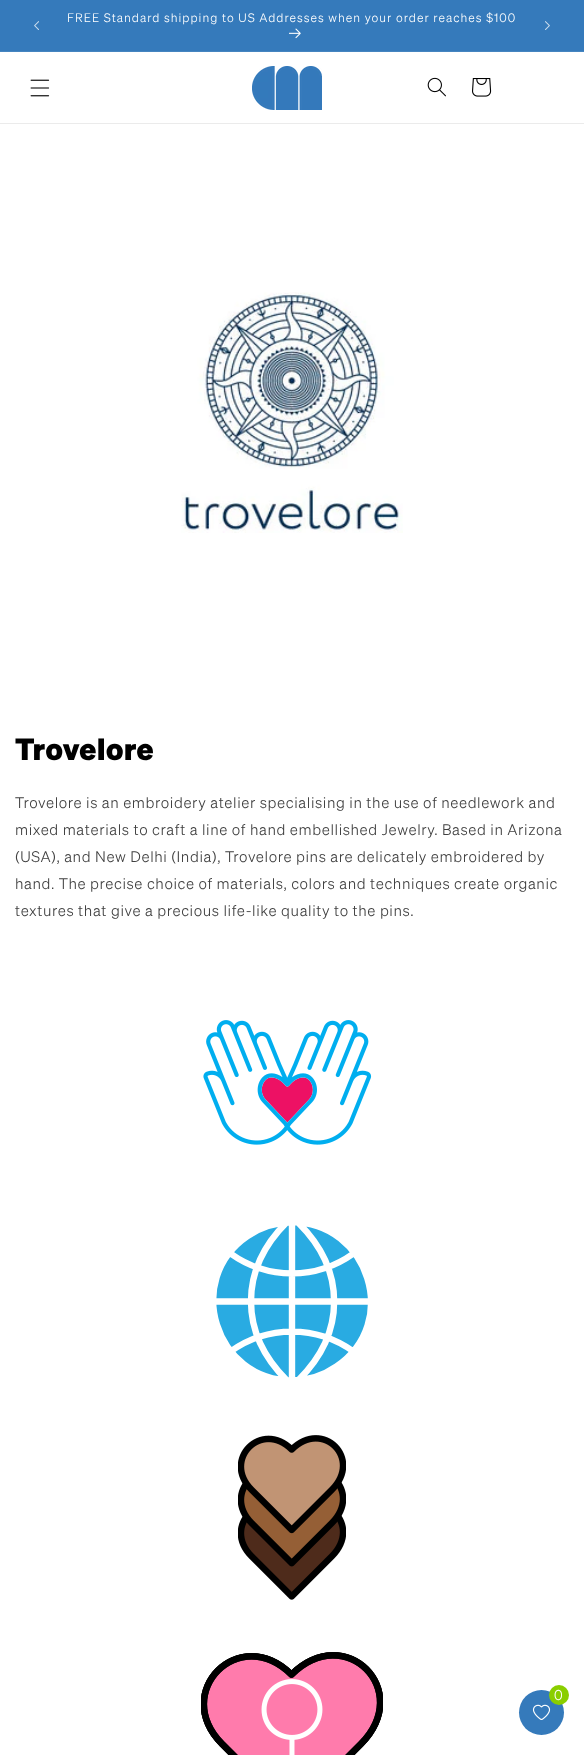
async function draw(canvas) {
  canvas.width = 584
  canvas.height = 1755
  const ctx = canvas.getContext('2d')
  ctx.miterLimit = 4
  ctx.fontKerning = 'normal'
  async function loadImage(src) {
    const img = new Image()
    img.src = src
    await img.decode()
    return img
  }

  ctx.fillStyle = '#fff'
  ctx.fillRect(0, 0, 584, 1755)
  ctx.fillStyle = '#357abb'
  ctx.fillRect(0, 0, 584, 51)
  ctx.fillStyle = '#4585c0'
  ctx.fillRect(0, 51, 584, 1)
  ctx.drawImage(await loadImage('image0.png'), 34, 21, 5, 9)
  ctx.letterSpacing = '1px'
  ctx.font = '300 12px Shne'
  ctx.fillStyle = '#fff'
  ctx.fillText('FREE Standard shipping to US Addresses when your order reaches $100', 67, 22)
  ctx.drawImage(await loadImage('image1.png'), 289, 28, 12, 11)
  ctx.drawImage(await loadImage('image2.png'), 545, 21, 5, 9)
  ctx.fillStyle = '#ebebeb'
  ctx.fillRect(0, 123, 584, 1)
  ctx.drawImage(await loadImage('image3.png'), 30, 79, 20, 18)
  ctx.drawImage(await loadImage('image4.png'), 252, 66, 70, 44)
  ctx.drawImage(await loadImage('image5.png'), 427, 77, 19, 20)
  ctx.drawImage(await loadImage('image6.png'), 472, 78, 20, 19)
  ctx.drawImage(await loadImage('image7.png'), 181, 292, 222, 241)
  ctx.letterSpacing = '0.6px'
  ctx.font = '800 30px Shne'
  ctx.fillStyle = '#000'
  ctx.fillText('Trovelore', 15, 760)
  ctx.font = '300 15px Shne'
  ctx.fillStyle = '#404040'
  ctx.fillText('Trovelore is an embroidery atelier specialising in the use of needlework and', 15, 808)
  ctx.fillText('mixed materials to craft a line of hand embellished Jewelry. Based in Arizona', 15, 835)
  ctx.fillText('(USA), and New Delhi (India), Trovelore pins are delicately embroidered by', 15, 862)
  ctx.fillText('hand. The precise choice of materials, colors and techniques create organic', 15, 889)
  ctx.fillText('textures that give a precious life-like quality to the pins.', 15, 916)
  ctx.drawImage(await loadImage('image8.png'), 203, 1020, 169, 125)
  ctx.fillStyle = '#29abe2'
  ctx.beginPath()
  ctx.arc(292, 1301.5, 79, 0, 2 * Math.PI)
  ctx.fill()
  ctx.save()
  ctx.beginPath()
  ctx.rect(210, 1219, 164, 164)
  ctx.clip()
  ctx.beginPath()
  ctx.moveTo(298.5, 1223)
  ctx.bezierCurveTo(346, 1270, 346, 1333, 298.5, 1380)
  ctx.moveTo(230.5, 1351.5)
  ctx.bezierCurveTo(267.5, 1325, 316.5, 1325, 353.5, 1351.5)
  ctx.moveTo(287, 1222)
  ctx.bezierCurveTo(239, 1269.5, 239, 1333, 287, 1380.5)
  ctx.moveTo(291.5, 1222)
  ctx.bezierCurveTo(276, 1222.5, 260.5, 1227, 247.5, 1236)
  ctx.bezierCurveTo(183.5, 1279.5, 215, 1381, 292.5, 1380.5)
  ctx.bezierCurveTo(308, 1380.5, 323.5, 1375.5, 336.5, 1366.5)
  ctx.bezierCurveTo(401, 1323, 369, 1222, 291.5, 1222)
  ctx.closePath()
  ctx.moveTo(292, 1222)
  ctx.lineTo(292, 1380.5)
  ctx.moveTo(371, 1301.5)
  ctx.lineTo(213, 1301.5)
  ctx.moveTo(230.5, 1253.5)
  ctx.bezierCurveTo(267.5, 1280, 316.5, 1280, 353.5, 1253.5)
  ctx.strokeStyle = '#fff'
  ctx.lineWidth = 6.4
  ctx.stroke()
  ctx.restore()
  ctx.drawImage(await loadImage('image9.png'), 238, 1435, 108, 165)
  ctx.drawImage(await loadImage('image10.png'), 201, 1652, 182, 103)
  ctx.fillStyle = '#357abb'
  ctx.beginPath()
  ctx.arc(541.5, 1712.5, 22.5, 0, 2 * Math.PI)
  ctx.fill()
  ctx.drawImage(await loadImage('image11.png'), 532, 1704, 19, 16)
  ctx.fillStyle = '#8ace00'
  ctx.beginPath()
  ctx.arc(559, 1695, 10, 0, 2 * Math.PI)
  ctx.fill()
  ctx.font = '300 14px Shne'
  ctx.fillStyle = '#fff'
  ctx.fillText('0', 554, 1700)
}

draw(document.querySelector('canvas'))
